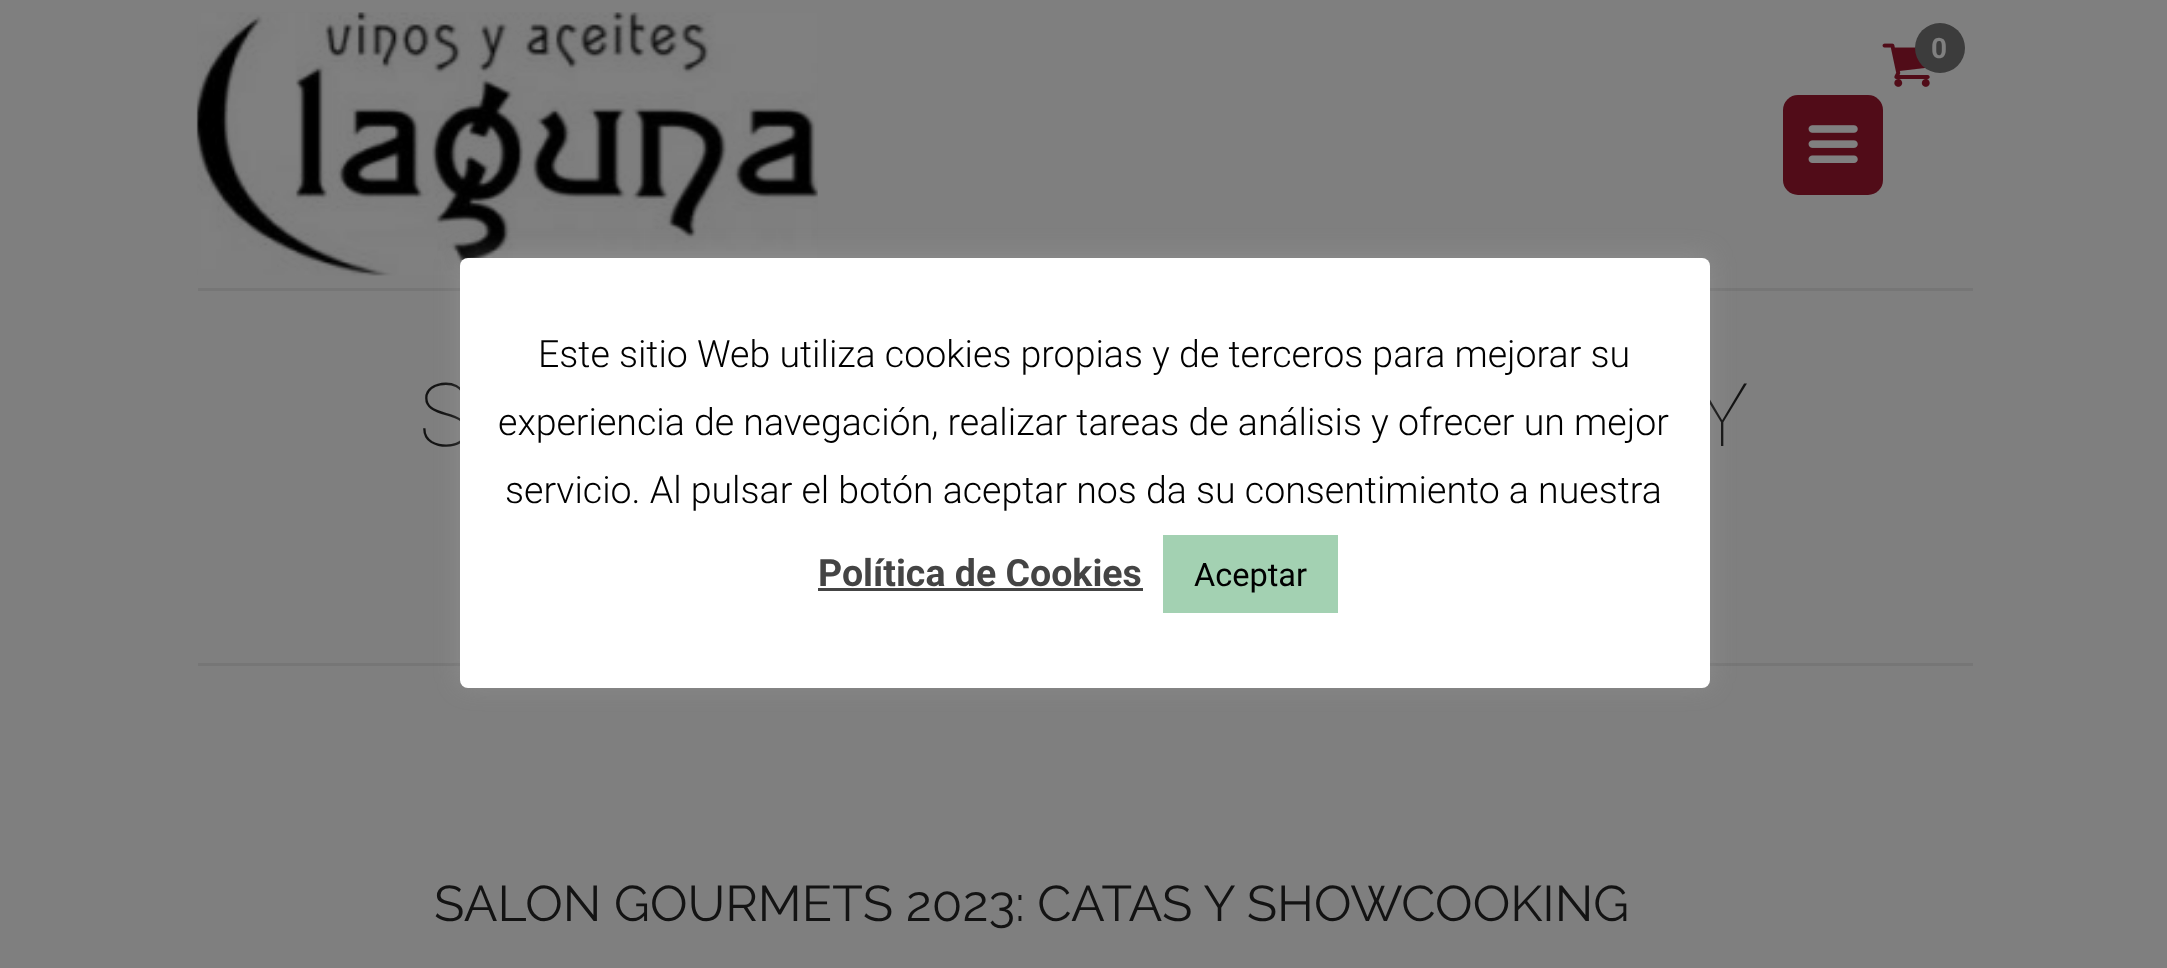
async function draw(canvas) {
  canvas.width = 2167
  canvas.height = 968
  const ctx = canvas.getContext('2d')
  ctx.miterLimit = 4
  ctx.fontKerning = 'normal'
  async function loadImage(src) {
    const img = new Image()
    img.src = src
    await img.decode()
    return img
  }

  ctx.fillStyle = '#7f7f7f'
  ctx.fillRect(0, 0, 2167, 968)
  ctx.fillStyle = '#767676'
  ctx.fillRect(198, 288, 1775, 3)
  ctx.drawImage(await loadImage('image0.png'), 196, 12, 622, 264)
  ctx.drawImage(await loadImage('image1.png'), 1882, 43, 48, 44)
  ctx.fillStyle = '#3c3c3c'
  ctx.beginPath()
  ctx.arc(1940, 48, 25, 0, 2 * Math.PI)
  ctx.fill()
  ctx.font = 'bold 28px Roboto'
  ctx.fillStyle = '#808080'
  ctx.fillText('0', 1931, 58)
  ctx.fillStyle = '#510c18'
  ctx.beginPath()
  ctx.roundRect(1783, 95, 100, 100, 15)
  ctx.fill()
  ctx.drawImage(await loadImage('image2.png'), 1808, 125, 50, 38)
  ctx.fillStyle = '#767676'
  ctx.fillRect(198, 663, 1775, 3)
  ctx.font = '100 88px Roboto'
  ctx.fillStyle = '#131313'
  ctx.fillText('S', 419, 446)
  ctx.fillText('Y', 1696, 446)
  ctx.font = '50px Raleway'
  ctx.fillText('SALON GOURMETS 2023: CATAS Y SHOWCOOKING', 434, 921)
  ctx.fillStyle = '#acabab4d'
  ctx.filter = 'blur(12.5px)'
  ctx.beginPath()
  ctx.roundRect(460, 255, 1250, 430, 8)
  ctx.fill()
  ctx.filter = 'none'
  ctx.fillStyle = '#fff'
  ctx.beginPath()
  ctx.roundRect(460, 258, 1250, 430, 8)
  ctx.fill()
  ctx.font = '300 37.5px Roboto'
  ctx.fillStyle = '#000'
  ctx.fillText('Este sitio Web utiliza cookies propias y de terceros para mejorar su', 538, 367)
  ctx.fillText('experiencia de navegación, realizar tareas de análisis y ofrecer un mejor', 498, 435)
  ctx.fillText('servicio. Al pulsar el botón aceptar nos da su consentimiento a nuestra', 505, 503)
  ctx.font = 'bold 37.5px Roboto'
  ctx.fillStyle = '#444'
  ctx.fillText('Política de Cookies', 818, 586)
  ctx.fillRect(818, 588, 325, 3)
  ctx.fillStyle = '#a3d1b2'
  ctx.fillRect(1163, 535, 175, 78)
  ctx.font = '32.5px Roboto'
  ctx.fillStyle = '#000'
  ctx.fillText('Aceptar', 1194, 586)
}

draw(document.querySelector('canvas'))
